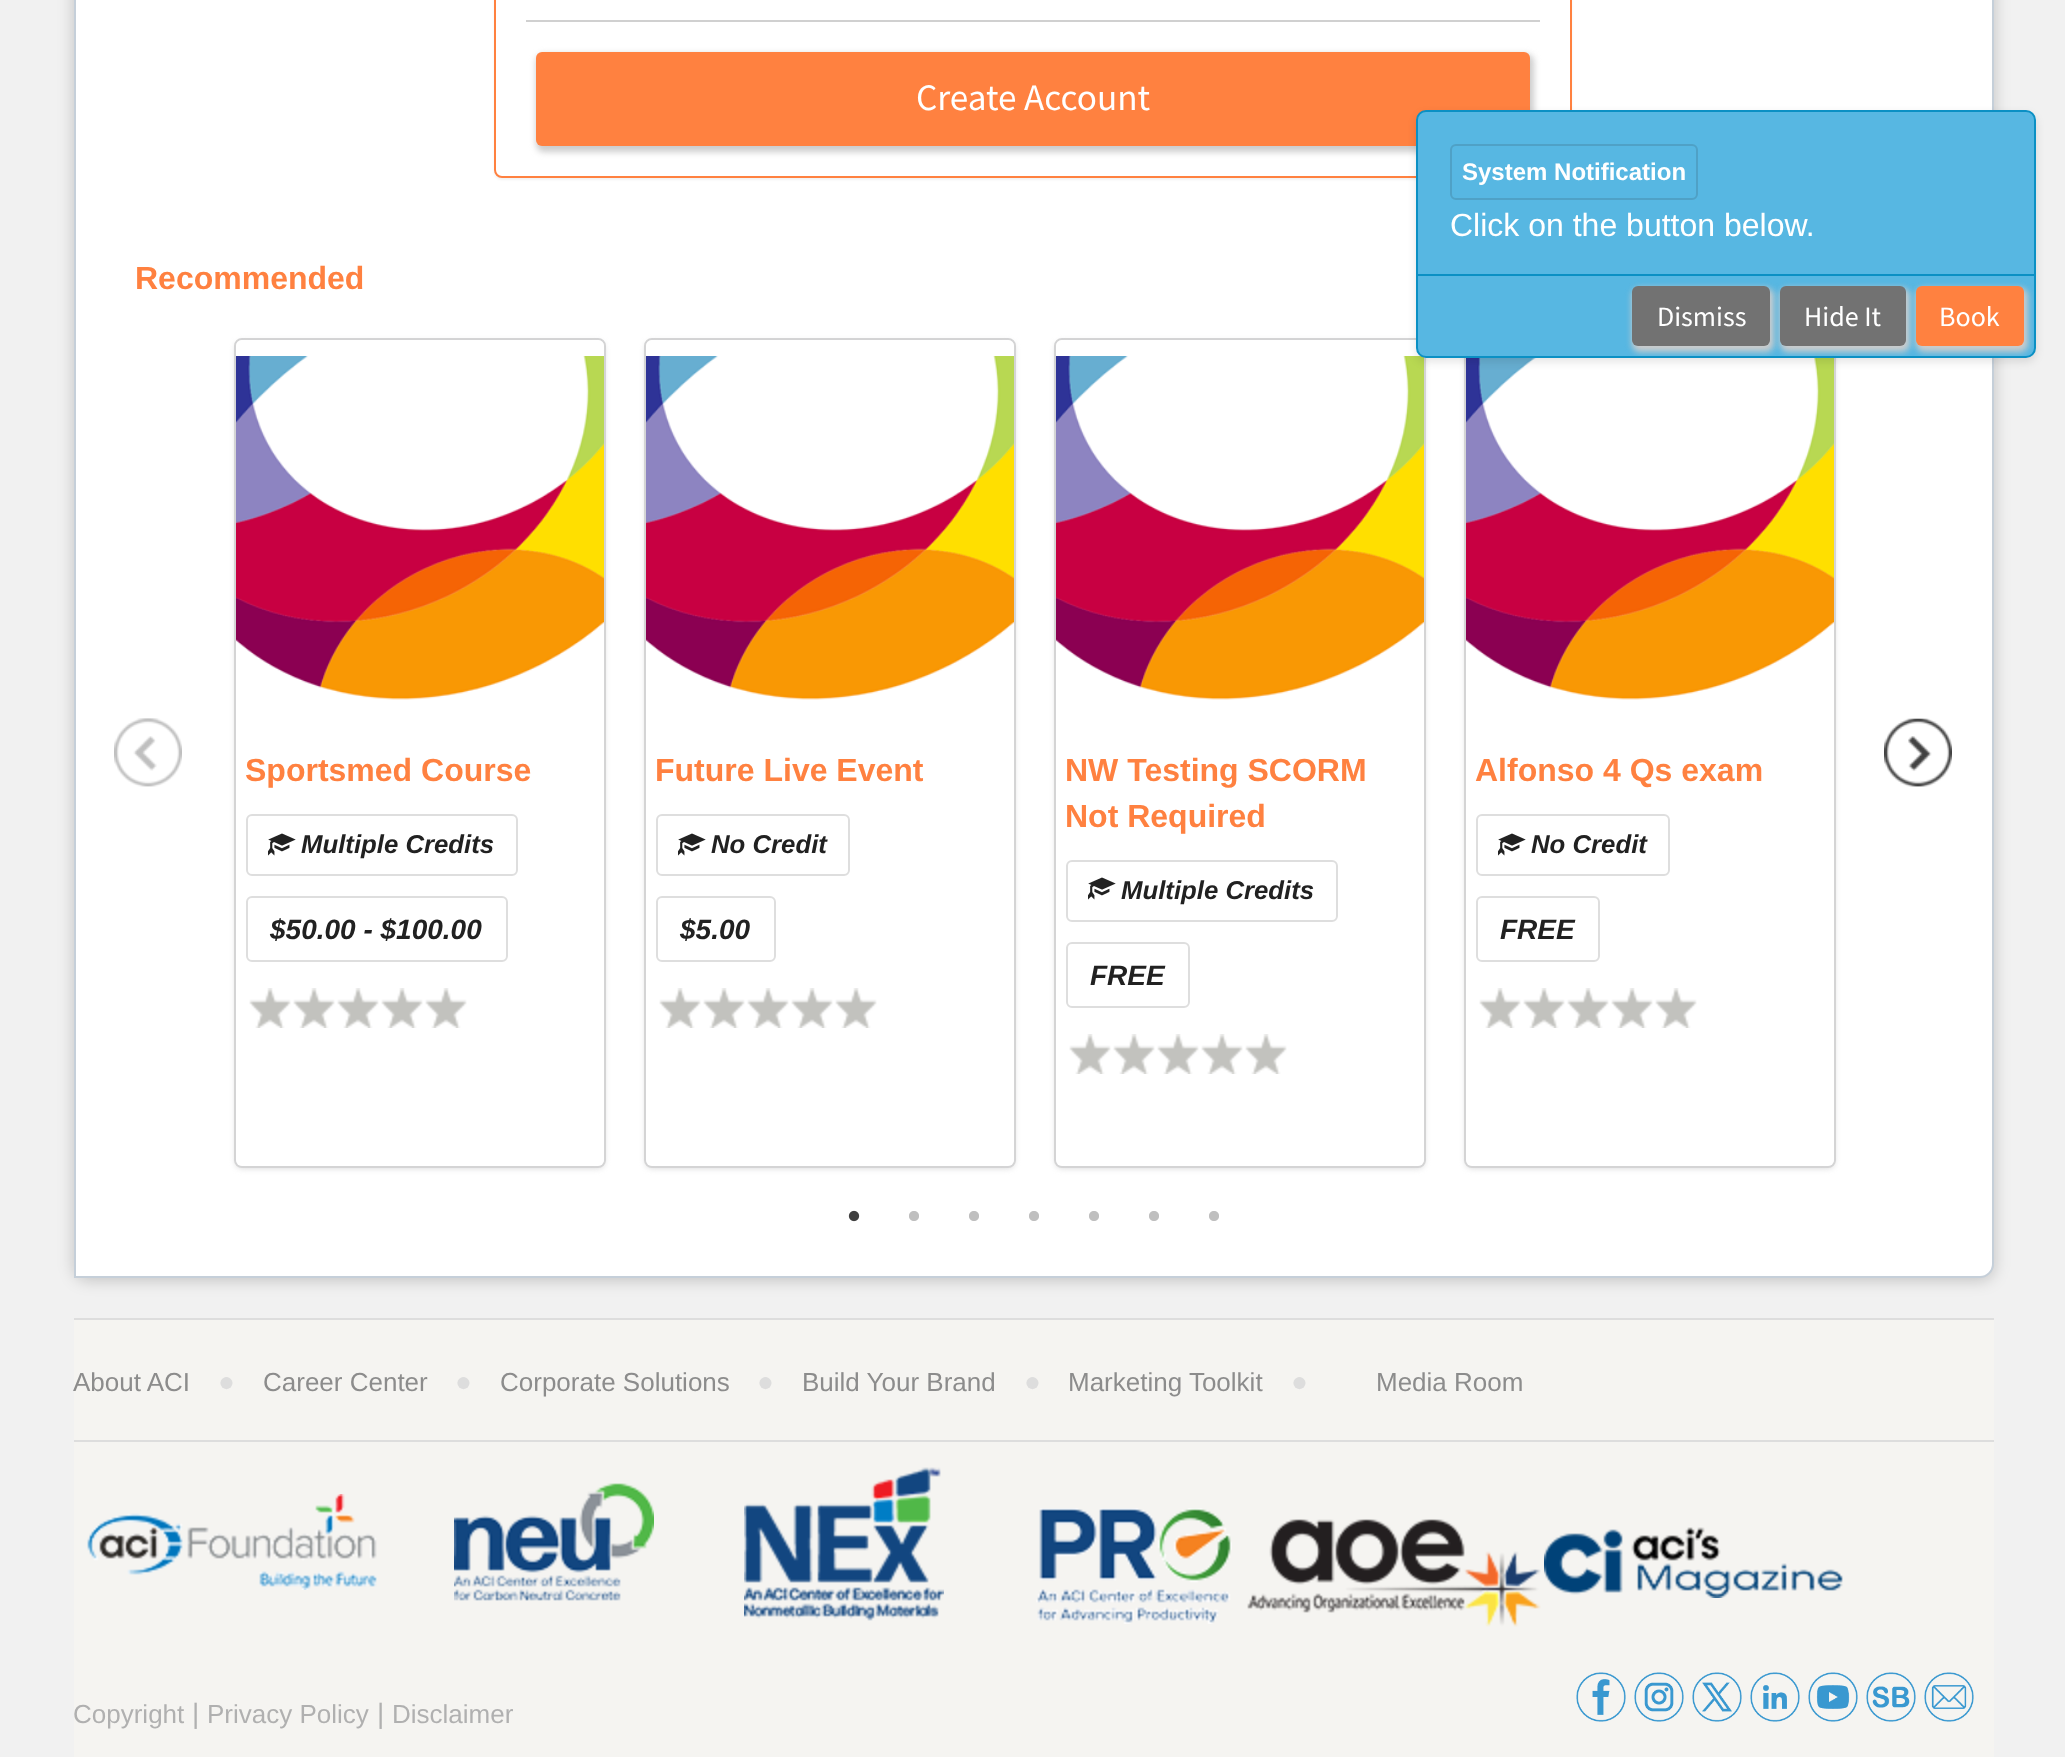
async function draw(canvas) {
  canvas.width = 2065
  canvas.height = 1757
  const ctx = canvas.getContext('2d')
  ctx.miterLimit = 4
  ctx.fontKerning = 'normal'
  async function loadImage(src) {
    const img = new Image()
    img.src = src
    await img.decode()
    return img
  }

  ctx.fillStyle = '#f1f1f1'
  ctx.fillRect(0, 0, 2065, 1757)
  ctx.fillStyle = '#00000033'
  ctx.filter = 'blur(8px)'
  ctx.beginPath()
  ctx.roundRect(74, -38, 1920, 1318, 14)
  ctx.fill()
  ctx.filter = 'none'
  ctx.fillStyle = '#fff'
  ctx.beginPath()
  ctx.moveTo(75, -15)
  ctx.lineTo(1980, -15)
  ctx.bezierCurveTo(1987, -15, 1993, -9, 1993, -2)
  ctx.lineTo(1993, 1264)
  ctx.bezierCurveTo(1993, 1271, 1987, 1277, 1980, 1277)
  ctx.lineTo(75, 1277)
  ctx.closePath()
  ctx.fill()
  ctx.strokeStyle = '#c5cfd9'
  ctx.lineWidth = 2
  ctx.stroke()
  ctx.fillStyle = '#0000000d'
  ctx.filter = 'blur(1px)'
  ctx.beginPath()
  ctx.roundRect(494, -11, 1078, 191, 8)
  ctx.fill()
  ctx.filter = 'none'
  ctx.fillStyle = '#fff'
  ctx.beginPath()
  ctx.roundRect(495, -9, 1076, 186, 7)
  ctx.fill()
  ctx.strokeStyle = '#ff8140'
  ctx.stroke()
  ctx.fillStyle = '#d0d0d0'
  ctx.fillRect(526, 20, 1014, 2)
  ctx.fillStyle = '#ccc'
  ctx.filter = 'blur(3px)'
  ctx.beginPath()
  ctx.roundRect(536, 54, 998, 98, 8)
  ctx.fill()
  ctx.filter = 'none'
  ctx.fillStyle = '#ff8140'
  ctx.beginPath()
  ctx.roundRect(536, 52, 994, 94, 6)
  ctx.fill()
  ctx.font = '37.25px Source Sans Pro'
  ctx.fillStyle = '#fff'
  ctx.fillText('Create Account', 916, 110)
  ctx.font = 'bold 32px Liberation Sans'
  ctx.fillStyle = '#ff8140'
  ctx.fillText('Recommended', 135, 289)
  ctx.drawImage(await loadImage('image0.png'), 114, 718, 68, 69)
  ctx.beginPath()
  ctx.roundRect(235, 339, 370, 828, 7)
  ctx.strokeStyle = '#d4d4d5'
  ctx.stroke()
  ctx.fillStyle = '#d4d4d5'
  ctx.filter = 'blur(3px)'
  ctx.beginPath()
  ctx.roundRect(236, 342, 368, 826, 6)
  ctx.fill()
  ctx.filter = 'none'
  ctx.fillStyle = '#fff'
  ctx.beginPath()
  ctx.roundRect(236, 340, 368, 826, 6)
  ctx.fill()
  ctx.drawImage(await loadImage('image1.png'), 236, 356, 368, 344)
  ctx.fillStyle = '#ff8140'
  ctx.fillText('Sportsmed Course', 245, 781)
  ctx.beginPath()
  ctx.roundRect(247, 815, 270, 60, 5)
  ctx.strokeStyle = '#dedede'
  ctx.stroke()
  ctx.drawImage(await loadImage('image2.png'), 268, 833, 28, 23)
  ctx.font = 'italic bold 25.75px Liberation Sans'
  ctx.fillStyle = '#212121'
  ctx.fillText('Multiple Credits', 301, 853)
  ctx.beginPath()
  ctx.roundRect(247, 897, 260, 64, 5)
  ctx.stroke()
  ctx.font = 'italic bold 28px Liberation Sans'
  ctx.fillText('$50.00 - $100.00', 270, 939)
  ctx.drawImage(await loadImage('image3.png'), 249, 988, 218, 40)
  ctx.beginPath()
  ctx.roundRect(645, 339, 370, 828, 7)
  ctx.strokeStyle = '#d4d4d5'
  ctx.stroke()
  ctx.fillStyle = '#d4d4d5'
  ctx.filter = 'blur(3px)'
  ctx.beginPath()
  ctx.roundRect(646, 342, 368, 826, 6)
  ctx.fill()
  ctx.filter = 'none'
  ctx.fillStyle = '#fff'
  ctx.beginPath()
  ctx.roundRect(646, 340, 368, 826, 6)
  ctx.fill()
  ctx.drawImage(await loadImage('image4.png'), 646, 356, 368, 344)
  ctx.font = 'bold 32px Liberation Sans'
  ctx.fillStyle = '#ff8140'
  ctx.fillText('Future Live Event', 655, 781)
  ctx.beginPath()
  ctx.roundRect(657, 815, 192, 60, 5)
  ctx.strokeStyle = '#dedede'
  ctx.stroke()
  ctx.drawImage(await loadImage('image2.png'), 678, 833, 28, 23)
  ctx.font = 'italic bold 25.75px Liberation Sans'
  ctx.fillStyle = '#212121'
  ctx.fillText('No Credit', 711, 853)
  ctx.beginPath()
  ctx.roundRect(657, 897, 118, 64, 5)
  ctx.stroke()
  ctx.font = 'italic bold 28px Liberation Sans'
  ctx.fillText('$5.00', 680, 939)
  ctx.drawImage(await loadImage('image3.png'), 659, 988, 218, 40)
  ctx.beginPath()
  ctx.roundRect(1055, 339, 370, 828, 7)
  ctx.strokeStyle = '#d4d4d5'
  ctx.stroke()
  ctx.fillStyle = '#d4d4d5'
  ctx.filter = 'blur(3px)'
  ctx.beginPath()
  ctx.roundRect(1056, 342, 368, 826, 6)
  ctx.fill()
  ctx.filter = 'none'
  ctx.fillStyle = '#fff'
  ctx.beginPath()
  ctx.roundRect(1056, 340, 368, 826, 6)
  ctx.fill()
  ctx.drawImage(await loadImage('image5.png'), 1056, 356, 368, 344)
  ctx.font = 'bold 32px Liberation Sans'
  ctx.fillStyle = '#ff8140'
  ctx.fillText('NW Testing SCORM', 1065, 781)
  ctx.fillText('Not Required', 1065, 827)
  ctx.beginPath()
  ctx.roundRect(1067, 861, 270, 60, 5)
  ctx.strokeStyle = '#dedede'
  ctx.stroke()
  ctx.drawImage(await loadImage('image2.png'), 1088, 877, 28, 23)
  ctx.font = 'italic bold 25.75px Liberation Sans'
  ctx.fillStyle = '#212121'
  ctx.fillText('Multiple Credits', 1121, 899)
  ctx.beginPath()
  ctx.roundRect(1067, 943, 122, 64, 5)
  ctx.stroke()
  ctx.font = 'italic bold 28px Liberation Sans'
  ctx.fillText('FREE', 1090, 985)
  ctx.drawImage(await loadImage('image3.png'), 1069, 1034, 218, 40)
  ctx.beginPath()
  ctx.roundRect(1465, 339, 370, 828, 7)
  ctx.strokeStyle = '#d4d4d5'
  ctx.stroke()
  ctx.fillStyle = '#d4d4d5'
  ctx.filter = 'blur(3px)'
  ctx.beginPath()
  ctx.roundRect(1466, 342, 368, 826, 6)
  ctx.fill()
  ctx.filter = 'none'
  ctx.fillStyle = '#fff'
  ctx.beginPath()
  ctx.roundRect(1466, 340, 368, 826, 6)
  ctx.fill()
  ctx.drawImage(await loadImage('image6.png'), 1466, 358, 368, 342)
  ctx.font = 'bold 32px Liberation Sans'
  ctx.fillStyle = '#ff8140'
  ctx.fillText('Alfonso 4 Qs exam', 1475, 781)
  ctx.beginPath()
  ctx.roundRect(1477, 815, 192, 60, 5)
  ctx.strokeStyle = '#dedede'
  ctx.stroke()
  ctx.drawImage(await loadImage('image2.png'), 1498, 833, 28, 23)
  ctx.font = 'italic bold 25.75px Liberation Sans'
  ctx.fillStyle = '#212121'
  ctx.fillText('No Credit', 1531, 853)
  ctx.beginPath()
  ctx.roundRect(1477, 897, 122, 64, 5)
  ctx.stroke()
  ctx.font = 'italic bold 28px Liberation Sans'
  ctx.fillText('FREE', 1500, 939)
  ctx.drawImage(await loadImage('image3.png'), 1479, 988, 218, 40)
  ctx.drawImage(await loadImage('image7.png'), 1884, 718, 68, 69)
  ctx.drawImage(await loadImage('image8.png'), 848, 1210, 12, 12)
  ctx.drawImage(await loadImage('image9.png'), 909, 1211, 10, 10)
  ctx.drawImage(await loadImage('image9.png'), 969, 1211, 10, 10)
  ctx.drawImage(await loadImage('image9.png'), 1029, 1211, 10, 10)
  ctx.drawImage(await loadImage('image9.png'), 1089, 1211, 10, 10)
  ctx.drawImage(await loadImage('image9.png'), 1149, 1211, 10, 10)
  ctx.drawImage(await loadImage('image9.png'), 1209, 1211, 10, 10)
  ctx.fillStyle = '#f5f4f1'
  ctx.fillRect(74, 1320, 1920, 437)
  ctx.fillStyle = '#ddd'
  ctx.fillRect(74, 1318, 1920, 2)
  ctx.fillRect(74, 1440, 1920, 2)
  ctx.font = '26px Liberation Sans'
  ctx.fillStyle = '#8c8c8c'
  ctx.fillText('About ACI', 73, 1391)
  ctx.font = '28px Liberation Sans'
  ctx.fillStyle = '#ddd'
  ctx.fillText('●', 218, 1391)
  ctx.font = '26px Liberation Sans'
  ctx.fillStyle = '#8c8c8c'
  ctx.fillText('Career Center', 263, 1391)
  ctx.font = '28px Liberation Sans'
  ctx.fillStyle = '#ddd'
  ctx.fillText('●', 455, 1391)
  ctx.font = '26px Liberation Sans'
  ctx.fillStyle = '#8c8c8c'
  ctx.fillText('Corporate Solutions', 500, 1391)
  ctx.font = '28px Liberation Sans'
  ctx.fillStyle = '#ddd'
  ctx.fillText('●', 757, 1391)
  ctx.font = '26px Liberation Sans'
  ctx.fillStyle = '#8c8c8c'
  ctx.fillText('Build Your Brand', 802, 1391)
  ctx.font = '28px Liberation Sans'
  ctx.fillStyle = '#ddd'
  ctx.fillText('●', 1024, 1391)
  ctx.font = '26px Liberation Sans'
  ctx.fillStyle = '#8c8c8c'
  ctx.fillText('Marketing Toolkit', 1068, 1391)
  ctx.font = '28px Liberation Sans'
  ctx.fillStyle = '#ddd'
  ctx.fillText('●', 1291, 1391)
  ctx.font = '26px Liberation Sans'
  ctx.fillStyle = '#8c8c8c'
  ctx.fillText('Media Room', 1376, 1391)
  ctx.drawImage(await loadImage('image10.png'), 87, 1494, 290, 96)
  ctx.drawImage(await loadImage('image11.png'), 454, 1483, 200, 118)
  ctx.drawImage(await loadImage('image12.png'), 744, 1467, 200, 154)
  ctx.drawImage(await loadImage('image13.png'), 1036, 1508, 196, 116)
  ctx.drawImage(await loadImage('image14.png'), 1247, 1519, 294, 108)
  ctx.drawImage(await loadImage('image15.png'), 1544, 1527, 299, 71)
  ctx.fillStyle = '#b0b0b0'
  ctx.fillText('Copyright', 73, 1723)
  ctx.font = '28px Liberation Sans'
  ctx.fillText('|', 192, 1723)
  ctx.font = '26px Liberation Sans'
  ctx.fillText('Privacy Policy', 207, 1723)
  ctx.font = '28px Liberation Sans'
  ctx.fillText('|', 377, 1723)
  ctx.font = '26px Liberation Sans'
  ctx.fillText('Disclaimer', 392, 1723)
  ctx.drawImage(await loadImage('image16.png'), 1576, 1672, 50, 50)
  ctx.drawImage(await loadImage('image17.png'), 1634, 1672, 50, 50)
  ctx.drawImage(await loadImage('image18.png'), 1692, 1672, 50, 50)
  ctx.drawImage(await loadImage('image19.png'), 1750, 1672, 50, 50)
  ctx.drawImage(await loadImage('image20.png'), 1808, 1672, 50, 50)
  ctx.drawImage(await loadImage('image21.png'), 1866, 1672, 50, 50)
  ctx.drawImage(await loadImage('image22.png'), 1924, 1672, 50, 50)
  ctx.fillStyle = '#0000001a'
  ctx.filter = 'blur(4px)'
  ctx.beginPath()
  ctx.roundRect(1416, 114, 620, 248, 10)
  ctx.fill()
  ctx.filter = 'none'
  ctx.fillStyle = '#57b7e2'
  ctx.beginPath()
  ctx.roundRect(1417, 111, 618, 246, 9)
  ctx.fill()
  ctx.strokeStyle = '#0b90c4'
  ctx.stroke()
  ctx.beginPath()
  ctx.roundRect(1451, 145, 246, 54, 5)
  ctx.strokeStyle = '#4fa1c6'
  ctx.stroke()
  ctx.font = 'bold 24px Liberation Sans'
  ctx.fillStyle = '#fff'
  ctx.fillText('System Notification', 1462, 180)
  ctx.font = '32px Liberation Sans'
  ctx.fillText('Click on the button below.', 1450, 236)
  ctx.fillStyle = '#0b90c4'
  ctx.fillRect(1418, 274, 616, 2)
  ctx.save()
  ctx.beginPath()
  ctx.roundRect(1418, 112, 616, 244, 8)
  ctx.clip()
  ctx.fillStyle = '#ccc'
  ctx.filter = 'blur(3px)'
  ctx.beginPath()
  ctx.roundRect(1632, 288, 142, 64, 8)
  ctx.fill()
  ctx.filter = 'none'
  ctx.restore()
  ctx.fillStyle = '#727272'
  ctx.beginPath()
  ctx.roundRect(1632, 286, 138, 60, 6)
  ctx.fill()
  ctx.font = '28px Source Sans Pro'
  ctx.fillStyle = '#fff'
  ctx.fillText('Dismiss', 1657, 326)
  ctx.save()
  ctx.beginPath()
  ctx.roundRect(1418, 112, 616, 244, 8)
  ctx.clip()
  ctx.fillStyle = '#ccc'
  ctx.filter = 'blur(3px)'
  ctx.beginPath()
  ctx.roundRect(1780, 288, 130, 64, 8)
  ctx.fill()
  ctx.filter = 'none'
  ctx.restore()
  ctx.fillStyle = '#727272'
  ctx.beginPath()
  ctx.roundRect(1780, 286, 126, 60, 6)
  ctx.fill()
  ctx.fillStyle = '#fff'
  ctx.fillText('Hide It', 1804, 326)
  ctx.save()
  ctx.beginPath()
  ctx.roundRect(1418, 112, 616, 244, 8)
  ctx.clip()
  ctx.fillStyle = '#ccc'
  ctx.filter = 'blur(3px)'
  ctx.beginPath()
  ctx.roundRect(1916, 288, 112, 64, 8)
  ctx.fill()
  ctx.filter = 'none'
  ctx.restore()
  ctx.fillStyle = '#ff8140'
  ctx.beginPath()
  ctx.roundRect(1916, 286, 108, 60, 6)
  ctx.fill()
  ctx.fillStyle = '#fff'
  ctx.fillText('Book', 1939, 326)
}

draw(document.querySelector('canvas'))
